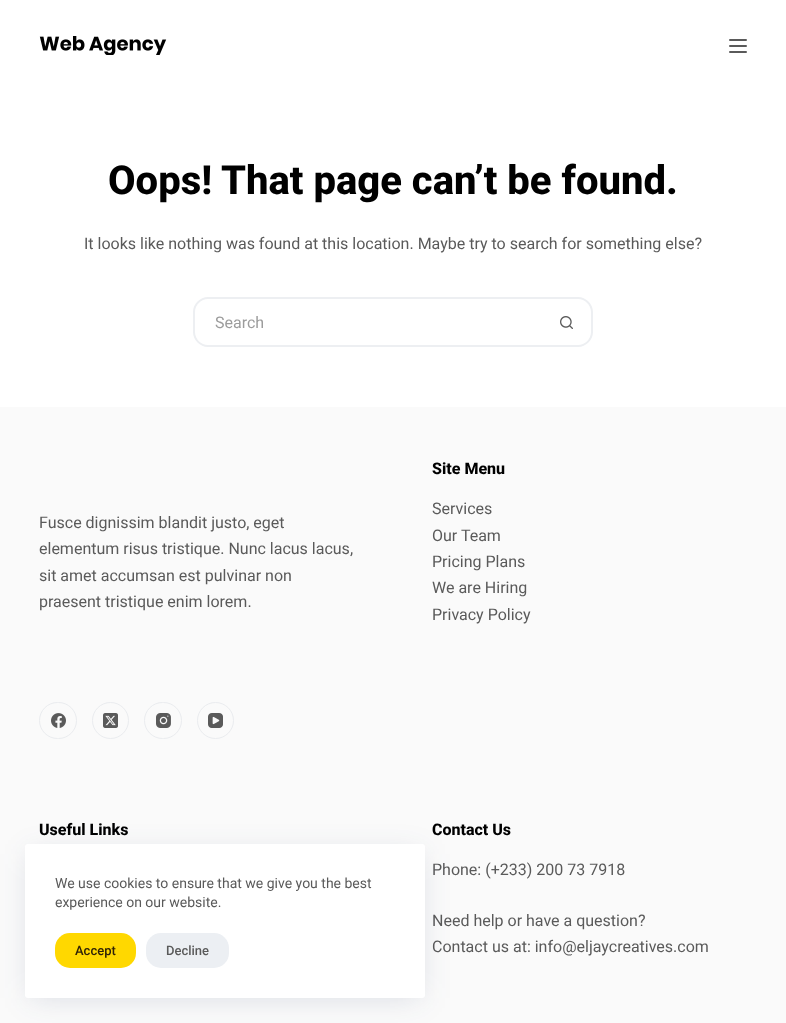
async function draw(canvas) {
  canvas.width = 786
  canvas.height = 1023
  const ctx = canvas.getContext('2d')
  ctx.miterLimit = 4
  ctx.fontKerning = 'normal'
  async function loadImage(src) {
    const img = new Image()
    img.src = src
    await img.decode()
    return img
  }

  ctx.fillStyle = '#fff'
  ctx.fillRect(0, 0, 786, 1023)
  ctx.drawImage(await loadImage('image0.png'), 39, 36, 128, 19)
  ctx.fillStyle = '#5a5a5a'
  ctx.beginPath()
  ctx.roundRect(729, 39, 18, 2, 1)
  ctx.fill()
  ctx.beginPath()
  ctx.roundRect(729, 45, 18, 2, 1)
  ctx.fill()
  ctx.beginPath()
  ctx.roundRect(729, 51, 18, 2, 1)
  ctx.fill()
  ctx.font = '800 40px Roboto'
  ctx.fillStyle = '#000'
  ctx.fillText('Oops! That page can’t be found.', 108, 194)
  ctx.font = '16px Roboto'
  ctx.fillStyle = '#5a5a5a'
  ctx.fillText('It looks like nothing was found at this location. Maybe try to search for something else?', 84, 249)
  ctx.fillStyle = '#edeff2'
  ctx.beginPath()
  ctx.moveTo(208, 297)
  ctx.lineTo(543, 297)
  ctx.lineTo(543, 347)
  ctx.lineTo(208, 347)
  ctx.bezierCurveTo(200, 347, 193, 340, 193, 332)
  ctx.lineTo(193, 312)
  ctx.bezierCurveTo(193, 304, 200, 297, 208, 297)
  ctx.closePath()
  ctx.moveTo(208, 299)
  ctx.lineTo(543, 299)
  ctx.lineTo(543, 345)
  ctx.lineTo(208, 345)
  ctx.bezierCurveTo(201, 345, 195, 339, 195, 332)
  ctx.lineTo(195, 312)
  ctx.bezierCurveTo(195, 305, 201, 299, 208, 299)
  ctx.closePath()
  ctx.fill('evenodd')
  ctx.fillStyle = '#9c9c9c'
  ctx.fillText('Search', 215, 328)
  ctx.fillStyle = '#edeff2'
  ctx.beginPath()
  ctx.moveTo(543, 297)
  ctx.lineTo(578, 297)
  ctx.bezierCurveTo(586, 297, 593, 304, 593, 312)
  ctx.lineTo(593, 332)
  ctx.bezierCurveTo(593, 340, 586, 347, 578, 347)
  ctx.lineTo(543, 347)
  ctx.closePath()
  ctx.moveTo(543, 299)
  ctx.lineTo(578, 299)
  ctx.bezierCurveTo(585, 299, 591, 305, 591, 312)
  ctx.lineTo(591, 332)
  ctx.bezierCurveTo(591, 339, 585, 345, 578, 345)
  ctx.lineTo(543, 345)
  ctx.closePath()
  ctx.fill('evenodd')
  ctx.drawImage(await loadImage('image1.png'), 560, 316, 13, 13)
  ctx.fillStyle = '#fafafa'
  ctx.fillRect(0, 407, 786, 616)
  ctx.fillStyle = '#5a5a5a'
  ctx.fillText('Fusce dignissim blandit justo, eget', 39, 528)
  ctx.fillText('elementum risus tristique. Nunc lacus lacus,', 39, 554)
  ctx.fillText('sit amet accumsan est pulvinar non', 39, 581)
  ctx.fillText('praesent tristique enim lorem.', 39, 607)
  ctx.beginPath()
  ctx.roundRect(39.5, 702.5, 37, 36, 18)
  ctx.strokeStyle = '#eaecef'
  ctx.stroke()
  ctx.drawImage(await loadImage('image2.png'), 51, 713, 15, 15)
  ctx.beginPath()
  ctx.arc(110.5, 720.5, 18, 0, 2 * Math.PI)
  ctx.stroke()
  ctx.drawImage(await loadImage('image3.png'), 103, 713, 15, 15)
  ctx.beginPath()
  ctx.roundRect(144.5, 702.5, 37, 36, 18)
  ctx.stroke()
  ctx.drawImage(await loadImage('image4.png'), 156, 713, 15, 15)
  ctx.beginPath()
  ctx.arc(215.5, 720.5, 18, 0, 2 * Math.PI)
  ctx.stroke()
  ctx.drawImage(await loadImage('image5.png'), 208, 713, 15, 15)
  ctx.font = '800 16px Roboto'
  ctx.fillStyle = '#000'
  ctx.fillText('Site Menu', 432, 474)
  ctx.font = '16px Roboto'
  ctx.fillStyle = '#5a5a5a'
  ctx.fillText('Services', 432, 514)
  ctx.fillText('Our Team', 432, 541)
  ctx.fillText('Pricing Plans', 432, 567)
  ctx.fillText('We are Hiring', 432, 593)
  ctx.fillText('Privacy Policy', 432, 620)
  ctx.font = '800 16px Roboto'
  ctx.fillStyle = '#000'
  ctx.fillText('Useful Links', 39, 835)
  ctx.fillText('Contact Us', 432, 835)
  ctx.font = '16px Roboto'
  ctx.fillStyle = '#5a5a5a'
  ctx.fillText('Phone: (+233) 200 73 7918', 432, 875)
  ctx.fillText('Need help or have a question?', 432, 926)
  ctx.fillText('Contact us at: info@eljaycreatives.com', 432, 952)
  ctx.fillStyle = '#22386526'
  ctx.filter = 'blur(15px)'
  ctx.beginPath()
  ctx.rect(30, 854, 390, 144)
  ctx.fill()
  ctx.filter = 'none'
  ctx.fillStyle = '#fff'
  ctx.beginPath()
  ctx.roundRect(25, 844, 400, 154, 3)
  ctx.fill()
  ctx.font = '14px Roboto'
  ctx.fillStyle = '#5a5a5a'
  ctx.fillText('We use cookies to ensure that we give you the best', 55, 888)
  ctx.fillText('experience on our website.', 55, 907)
  ctx.fillStyle = '#ffd800'
  ctx.beginPath()
  ctx.roundRect(55, 933, 81, 35, 15)
  ctx.fill()
  ctx.font = '500 13px Roboto'
  ctx.fillStyle = '#2f2207'
  ctx.fillText('Accept', 75, 955)
  ctx.fillStyle = '#eceff3'
  ctx.beginPath()
  ctx.roundRect(146, 933, 83, 35, 15)
  ctx.fill()
  ctx.fillStyle = '#5a5a5a'
  ctx.fillText('Decline', 166, 955)
}

draw(document.querySelector('canvas'))
